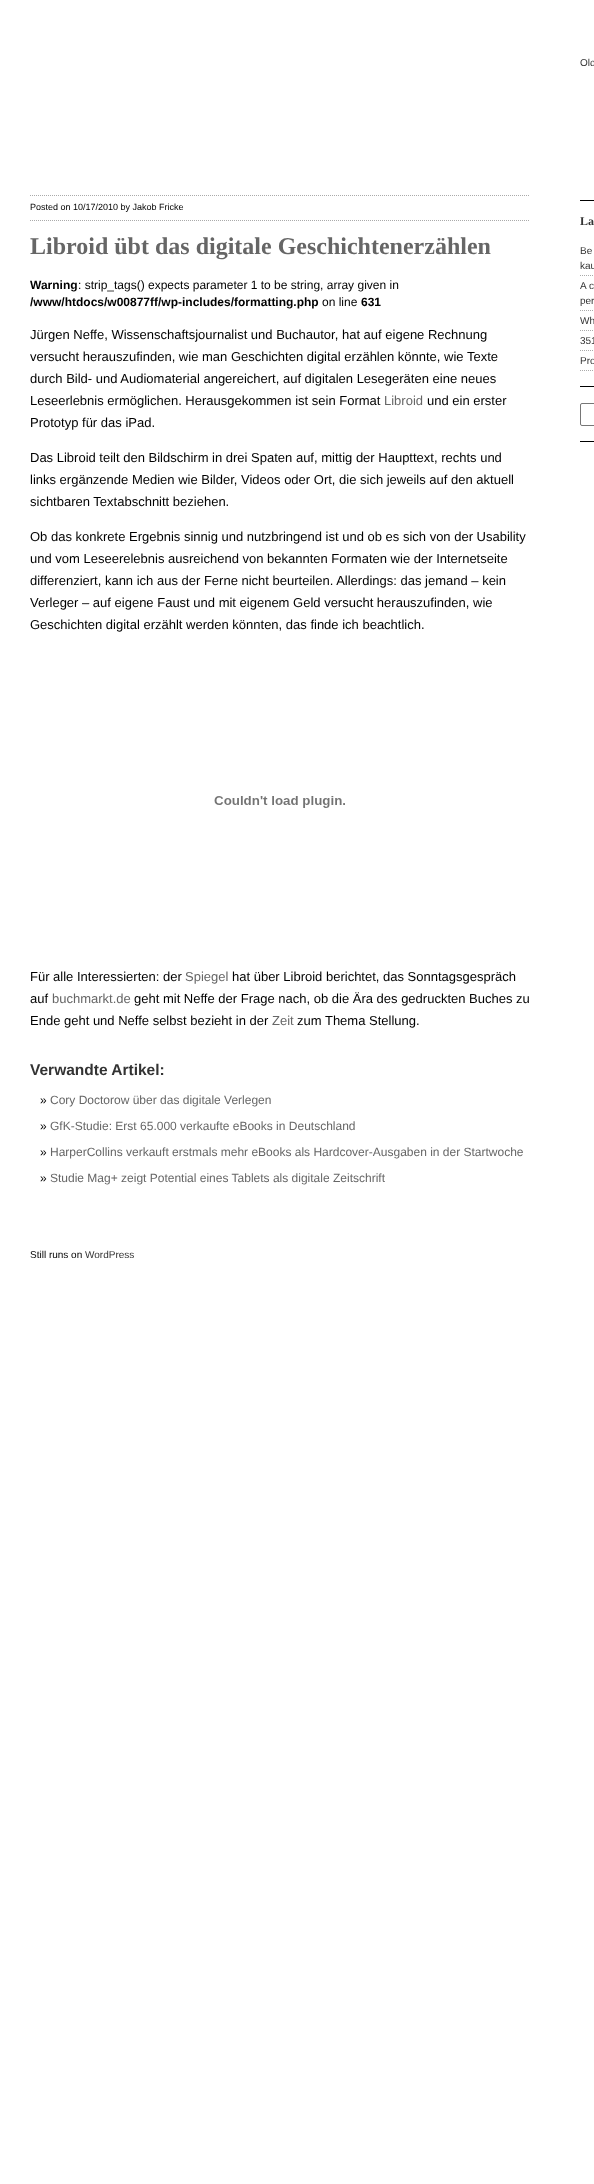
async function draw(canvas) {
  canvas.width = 594
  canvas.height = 2184
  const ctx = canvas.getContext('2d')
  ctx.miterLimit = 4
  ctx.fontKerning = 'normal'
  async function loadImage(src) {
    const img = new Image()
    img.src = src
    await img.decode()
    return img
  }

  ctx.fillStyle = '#fff'
  ctx.fillRect(0, 0, 594, 2184)
  ctx.font = '10px Liberation Sans'
  ctx.fillStyle = '#333'
  ctx.fillText('Old', 580, 66)
  ctx.beginPath()
  ctx.moveTo(30, 195.5)
  ctx.lineTo(530, 195.5)
  ctx.strokeStyle = '#aaa'
  ctx.setLineDash([1, 1])
  ctx.stroke()
  ctx.beginPath()
  ctx.moveTo(30, 220.5)
  ctx.lineTo(530, 220.5)
  ctx.stroke()
  ctx.font = '9px Liberation Sans'
  ctx.fillStyle = '#000'
  ctx.fillText('Posted on 10/17/2010 by Jakob Fricke', 30, 210)
  ctx.font = 'bold 24px Liberation Serif'
  ctx.fillStyle = '#666'
  ctx.fillText('Libroid übt das digitale Geschichtenerzählen', 30, 254)
  ctx.font = 'bold 12px Liberation Sans'
  ctx.fillStyle = '#000'
  ctx.fillText('Warning', 30, 289)
  ctx.font = '12px Liberation Sans'
  ctx.fillText(': strip_tags() expects parameter 1 to be string, array given in', 78, 289)
  ctx.font = 'bold 12px Liberation Sans'
  ctx.fillText('/www/htdocs/w00877ff/wp-includes/formatting.php', 30, 306)
  ctx.font = '12px Liberation Sans'
  ctx.fillText('on line', 322, 306)
  ctx.font = 'bold 12px Liberation Sans'
  ctx.fillText('631', 361, 306)
  ctx.font = '13px Liberation Sans'
  ctx.fillText('Jürgen Neffe, Wissenschaftsjournalist und Buchautor, hat auf eigene Rechnung', 30, 339)
  ctx.fillText('versucht herauszufinden, wie man Geschichten digital erzählen könnte, wie Texte', 30, 361)
  ctx.fillText('durch Bild- und Audiomaterial angereichert, auf digitalen Lesegeräten eine neues', 30, 383)
  ctx.fillText('Leseerlebnis ermöglichen. Herausgekommen ist sein Format', 30, 405)
  ctx.fillStyle = '#666'
  ctx.fillText('Libroid', 384, 405)
  ctx.fillStyle = '#000'
  ctx.fillText('und ein erster', 427, 405)
  ctx.fillText('Prototyp für das iPad.', 30, 427)
  ctx.fillText('Das Libroid teilt den Bildschirm in drei Spaten auf, mittig der Haupttext, rechts und', 30, 462)
  ctx.fillText('links ergänzende Medien wie Bilder, Videos oder Ort, die sich jeweils auf den aktuell', 30, 484)
  ctx.fillText('sichtbaren Textabschnitt beziehen.', 30, 506)
  ctx.fillText('Ob das konkrete Ergebnis sinnig und nutzbringend ist und ob es sich von der Usability', 30, 541)
  ctx.fillText('und vom Leseerelebnis ausreichend von bekannten Formaten wie der Internetseite', 30, 563)
  ctx.fillText('differenziert, kann ich aus der Ferne nicht beurteilen. Allerdings: das jemand – kein', 30, 585)
  ctx.fillText('Verleger – auf eigene Faust und mit eigenem Geld versucht herauszufinden, wie', 30, 607)
  ctx.fillText('Geschichten digital erzählt werden könnten, das finde ich beachtlich.', 30, 629)
  ctx.drawImage(await loadImage('image0.png'), 214, 796, 131, 12)
  ctx.fillText('Für alle Interessierten: der', 30, 981)
  ctx.fillStyle = '#666'
  ctx.fillText('Spiegel', 185, 981)
  ctx.fillStyle = '#000'
  ctx.fillText('hat über Libroid berichtet, das Sonntagsgespräch', 232, 981)
  ctx.fillText('auf', 30, 1003)
  ctx.fillStyle = '#666'
  ctx.fillText('buchmarkt.de', 52, 1003)
  ctx.fillStyle = '#000'
  ctx.fillText('geht mit Neffe der Frage nach, ob die Ära des gedruckten Buches zu', 134, 1003)
  ctx.fillText('Ende geht und Neffe selbst bezieht in der', 30, 1025)
  ctx.fillStyle = '#666'
  ctx.fillText('Zeit', 272, 1025)
  ctx.fillStyle = '#000'
  ctx.fillText('zum Thema Stellung.', 297, 1025)
  ctx.font = 'bold 15.5px Liberation Sans'
  ctx.fillStyle = '#333'
  ctx.fillText('Verwandte Artikel:', 30, 1075)
  ctx.font = '12px Liberation Sans'
  ctx.fillStyle = '#000'
  ctx.fillText('»', 40, 1104)
  ctx.fillStyle = '#666'
  ctx.fillText('Cory Doctorow über das digitale Verlegen', 50, 1104)
  ctx.fillStyle = '#000'
  ctx.fillText('»', 40, 1130)
  ctx.fillStyle = '#666'
  ctx.fillText('GfK-Studie: Erst 65.000 verkaufte eBooks in Deutschland', 50, 1130)
  ctx.fillStyle = '#000'
  ctx.fillText('»', 40, 1156)
  ctx.fillStyle = '#666'
  ctx.fillText('HarperCollins verkauft erstmals mehr eBooks als Hardcover-Ausgaben in der Startwoche', 50, 1156)
  ctx.fillStyle = '#000'
  ctx.fillText('»', 40, 1182)
  ctx.fillStyle = '#666'
  ctx.fillText('Studie Mag+ zeigt Potential eines Tablets als digitale Zeitschrift', 50, 1182)
  ctx.fillStyle = '#000'
  ctx.fillRect(580, 200, 14, 1)
  ctx.font = 'bold 12px Liberation Serif'
  ctx.fillStyle = '#333'
  ctx.fillText('La', 580, 225)
  ctx.beginPath()
  ctx.moveTo(580, 275.5)
  ctx.lineTo(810, 275.5)
  ctx.moveTo(580, 310.5)
  ctx.lineTo(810, 310.5)
  ctx.moveTo(580, 330.5)
  ctx.lineTo(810, 330.5)
  ctx.stroke()
  ctx.font = '10px Liberation Sans'
  ctx.fillText('Be', 580, 254)
  ctx.fillText('kau', 580, 269)
  ctx.fillText('A c', 580, 289)
  ctx.fillText('per', 580, 304)
  ctx.fillText('Wh', 580, 324)
  ctx.beginPath()
  ctx.moveTo(580, 350.5)
  ctx.lineTo(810, 350.5)
  ctx.moveTo(580, 370.5)
  ctx.lineTo(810, 370.5)
  ctx.stroke()
  ctx.fillText('351', 580, 344)
  ctx.fillText('Pro', 580, 364)
  ctx.fillStyle = '#000'
  ctx.fillRect(580, 386, 14, 1)
  ctx.fillRect(580, 441, 14, 1)
  ctx.beginPath()
  ctx.roundRect(580.5, 403.5, 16, 22, 1.5)
  ctx.strokeStyle = '#767676'
  ctx.setLineDash([])
  ctx.stroke()
  ctx.fillText('Still runs on', 30, 1258)
  ctx.fillStyle = '#333'
  ctx.fillText('WordPress', 85, 1258)
}

draw(document.querySelector('canvas'))
